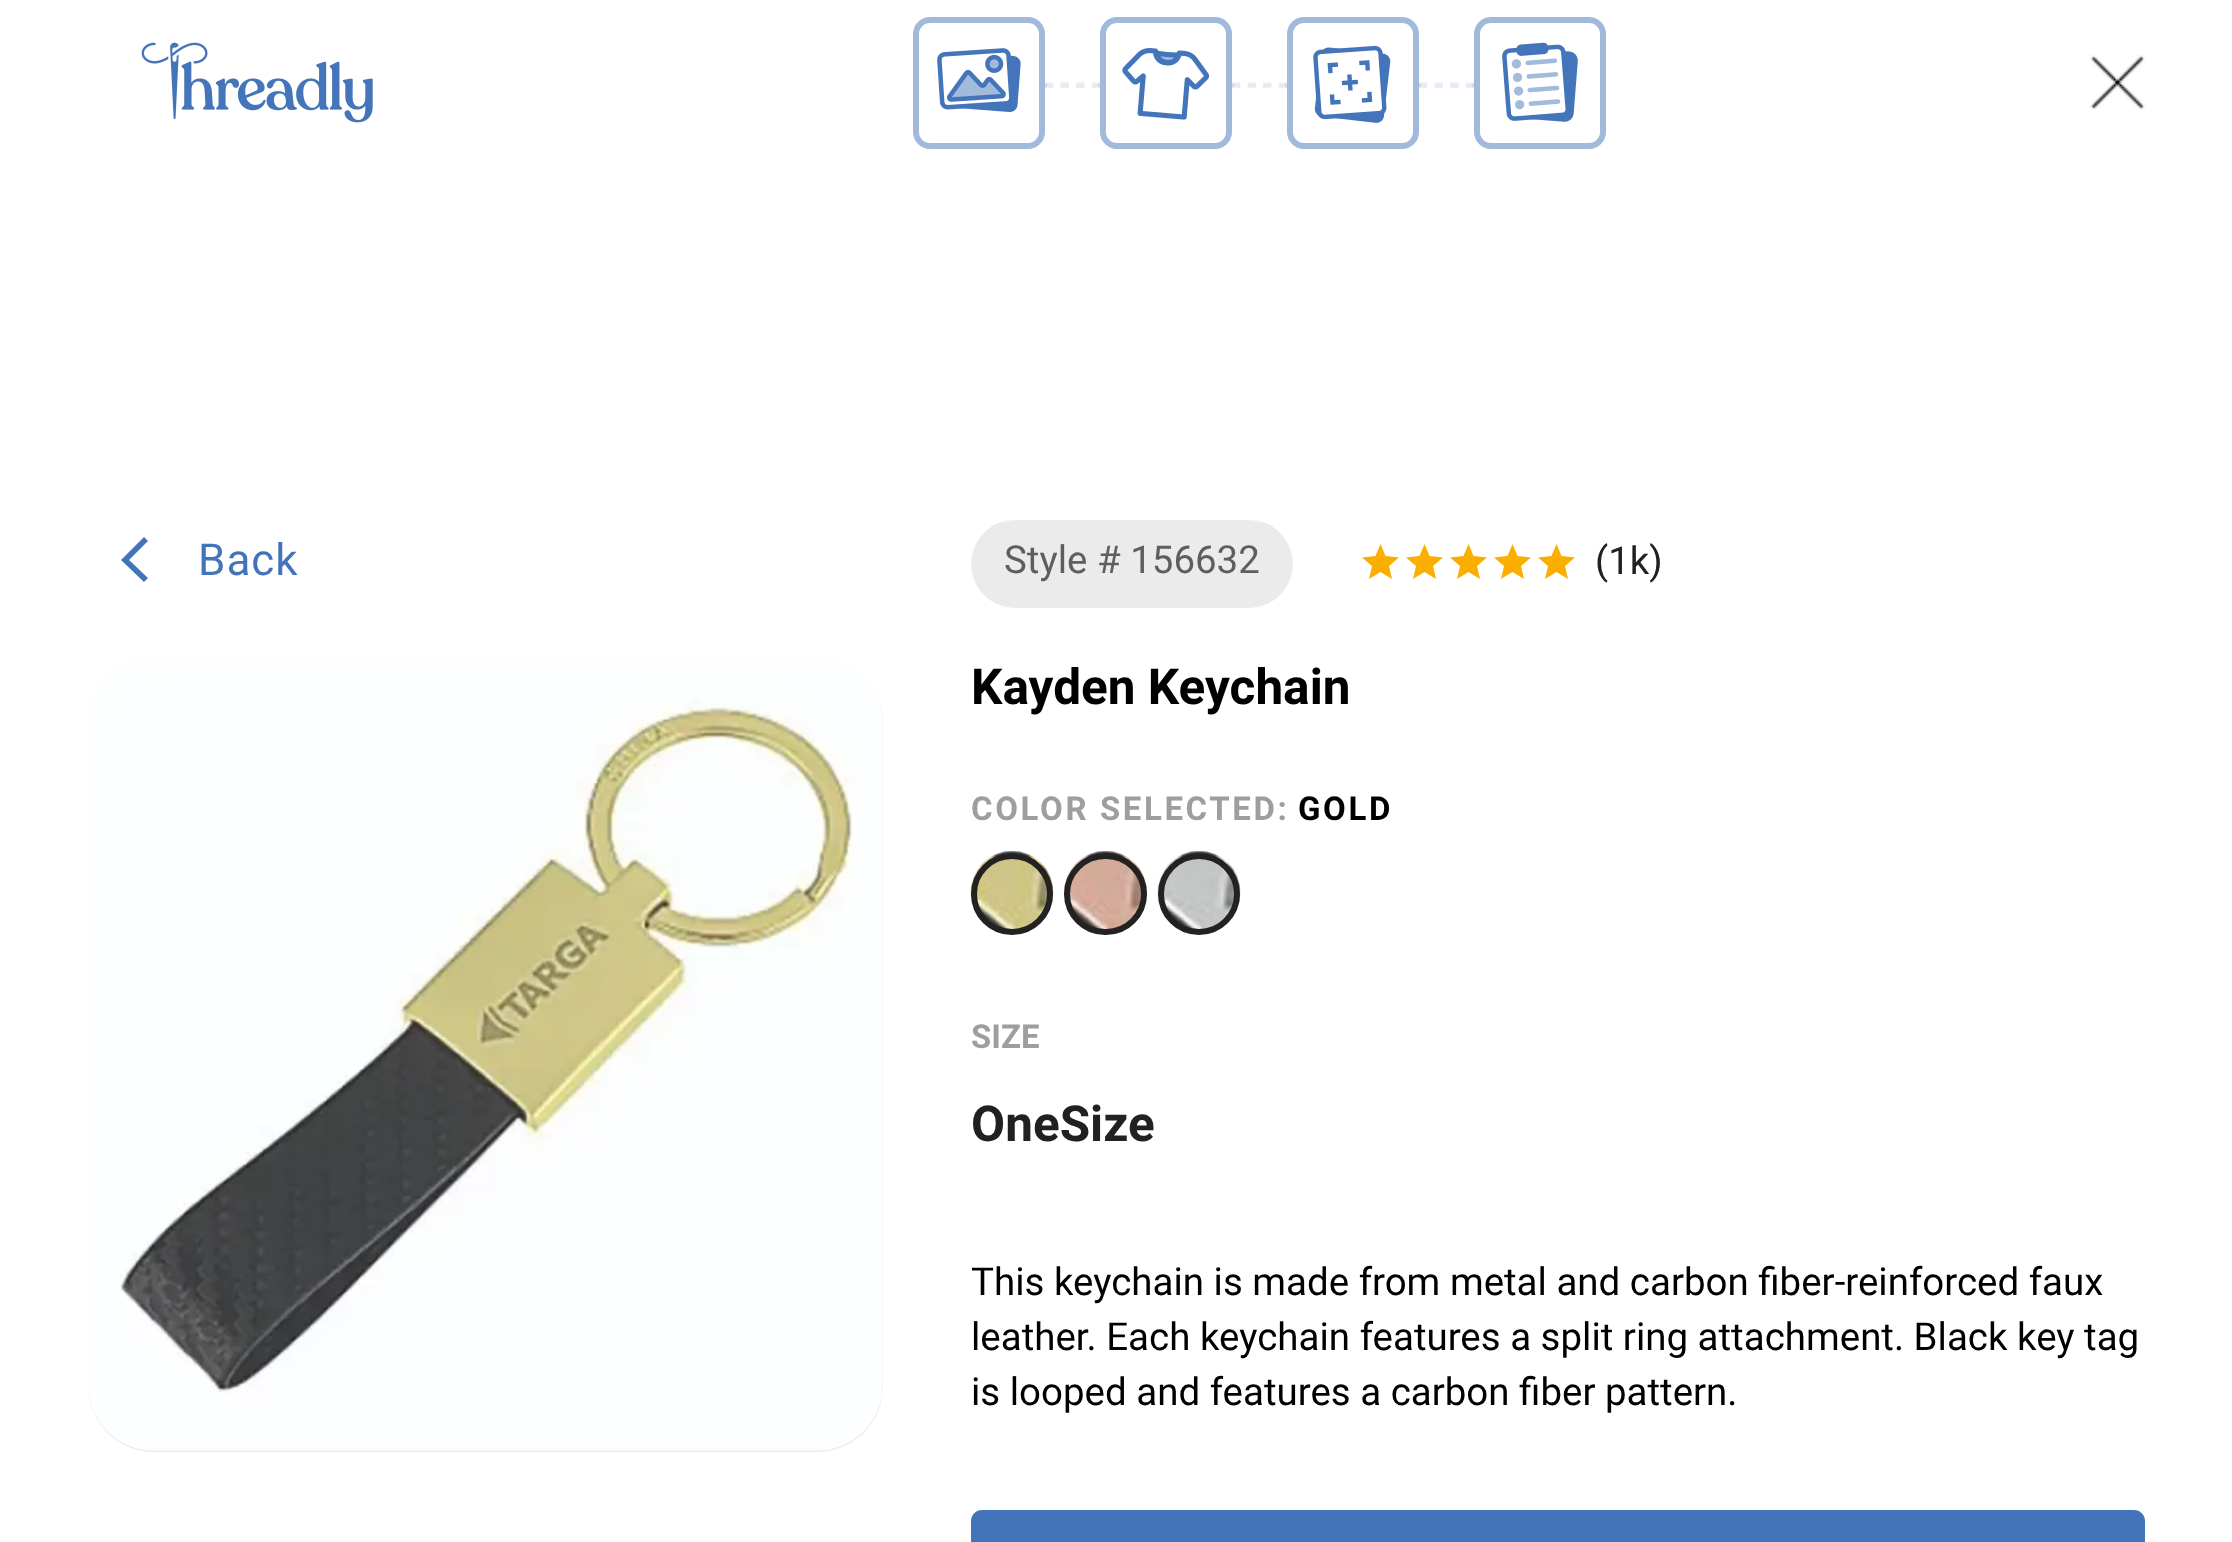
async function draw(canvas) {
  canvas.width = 2232
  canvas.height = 1542
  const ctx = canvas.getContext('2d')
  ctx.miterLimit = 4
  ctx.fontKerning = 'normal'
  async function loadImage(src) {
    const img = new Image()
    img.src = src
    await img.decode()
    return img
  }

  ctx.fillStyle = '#fff'
  ctx.fillRect(0, 0, 2232, 1542)
  ctx.drawImage(await loadImage('image0.png'), 141, 42, 232, 81)
  ctx.beginPath()
  ctx.roundRect(916, 20, 126, 126, 14)
  ctx.strokeStyle = '#a1badc'
  ctx.lineWidth = 6
  ctx.stroke()
  ctx.drawImage(await loadImage('image1.png'), 937, 48, 84, 64)
  ctx.beginPath()
  ctx.moveTo(1045, 84)
  ctx.lineTo(1100, 84)
  ctx.strokeStyle = '#e8eef7'
  ctx.lineWidth = 2.8
  ctx.setLineDash([8.25, 7.34])
  ctx.stroke()
  ctx.fillStyle = '#4374b91f'
  ctx.beginPath()
  ctx.moveTo(1100, 82.5)
  ctx.lineTo(1100, 88)
  ctx.lineTo(1097, 85)
  ctx.closePath()
  ctx.fill()
  ctx.beginPath()
  ctx.moveTo(1045, 86.5)
  ctx.lineTo(1100, 86.5)
  ctx.strokeStyle = '#4374b91f'
  ctx.stroke()
  ctx.beginPath()
  ctx.moveTo(1045, 88)
  ctx.lineTo(1045, 82.5)
  ctx.lineTo(1048, 85)
  ctx.closePath()
  ctx.fill()
  ctx.beginPath()
  ctx.roundRect(1103, 20, 126, 126, 14)
  ctx.strokeStyle = '#a1badc'
  ctx.lineWidth = 6
  ctx.setLineDash([])
  ctx.stroke()
  ctx.drawImage(await loadImage('image2.png'), 1122, 48, 88, 72)
  ctx.beginPath()
  ctx.moveTo(1232, 84)
  ctx.lineTo(1287, 84)
  ctx.strokeStyle = '#e8eef7'
  ctx.lineWidth = 2.8
  ctx.setLineDash([8.25, 7.34])
  ctx.stroke()
  ctx.beginPath()
  ctx.moveTo(1287, 82.5)
  ctx.lineTo(1287, 88)
  ctx.lineTo(1284, 85)
  ctx.closePath()
  ctx.fill()
  ctx.beginPath()
  ctx.moveTo(1232, 86.5)
  ctx.lineTo(1287, 86.5)
  ctx.strokeStyle = '#4374b91f'
  ctx.stroke()
  ctx.beginPath()
  ctx.moveTo(1232, 88)
  ctx.lineTo(1232, 82.5)
  ctx.lineTo(1235, 85)
  ctx.closePath()
  ctx.fill()
  ctx.beginPath()
  ctx.roundRect(1290, 20, 126, 126, 14)
  ctx.strokeStyle = '#a1badc'
  ctx.lineWidth = 6
  ctx.setLineDash([])
  ctx.stroke()
  ctx.drawImage(await loadImage('image3.png'), 1313, 45, 78, 78)
  ctx.beginPath()
  ctx.moveTo(1419, 84)
  ctx.lineTo(1474, 84)
  ctx.strokeStyle = '#e8eef7'
  ctx.lineWidth = 2.8
  ctx.setLineDash([8.25, 7.34])
  ctx.stroke()
  ctx.beginPath()
  ctx.moveTo(1474, 82.5)
  ctx.lineTo(1474, 88)
  ctx.lineTo(1471, 85)
  ctx.closePath()
  ctx.fill()
  ctx.beginPath()
  ctx.moveTo(1419, 86.5)
  ctx.lineTo(1474, 86.5)
  ctx.strokeStyle = '#4374b91f'
  ctx.stroke()
  ctx.beginPath()
  ctx.moveTo(1419, 88)
  ctx.lineTo(1419, 82.5)
  ctx.lineTo(1422, 85)
  ctx.closePath()
  ctx.fill()
  ctx.beginPath()
  ctx.roundRect(1477, 20, 126, 126, 14)
  ctx.strokeStyle = '#a1badc'
  ctx.lineWidth = 6
  ctx.setLineDash([])
  ctx.stroke()
  ctx.drawImage(await loadImage('image4.png'), 1502, 42, 76, 80)
  ctx.drawImage(await loadImage('image5.png'), 2090, 55, 55, 55)
  ctx.fillStyle = '#4374b9'
  ctx.beginPath()
  ctx.moveTo(148, 541)
  ctx.lineTo(144, 537)
  ctx.lineTo(121, 560)
  ctx.lineTo(144, 582)
  ctx.lineTo(148, 578)
  ctx.lineTo(129, 560)
  ctx.closePath()
  ctx.fill()
  ctx.letterSpacing = '1px'
  ctx.font = '44px Roboto'
  ctx.fillText('Back', 198, 575)
  ctx.fillStyle = '#ebebeb'
  ctx.beginPath()
  ctx.roundRect(971, 520, 322, 88, 44)
  ctx.fill()
  ctx.letterSpacing = '0px'
  ctx.font = '38.5px Roboto'
  ctx.fillStyle = '#5e5e5e'
  ctx.fillText('Style # 156632', 1004, 573)
  ctx.fillStyle = '#faaf00'
  ctx.beginPath()
  ctx.moveTo(1380.5, 572)
  ctx.lineTo(1392, 579)
  ctx.lineTo(1389, 566)
  ctx.lineTo(1399, 557.5)
  ctx.lineTo(1385.5, 556)
  ctx.lineTo(1380.5, 544)
  ctx.lineTo(1375.5, 556)
  ctx.lineTo(1362, 557.5)
  ctx.lineTo(1372, 566)
  ctx.lineTo(1369, 579)
  ctx.closePath()
  ctx.fill()
  ctx.beginPath()
  ctx.moveTo(1424.5, 572)
  ctx.lineTo(1436, 579)
  ctx.lineTo(1433, 566)
  ctx.lineTo(1443, 557.5)
  ctx.lineTo(1429.5, 556)
  ctx.lineTo(1424.5, 544)
  ctx.lineTo(1419.5, 556)
  ctx.lineTo(1406, 557.5)
  ctx.lineTo(1416, 566)
  ctx.lineTo(1413, 579)
  ctx.closePath()
  ctx.fill()
  ctx.beginPath()
  ctx.moveTo(1468.5, 572)
  ctx.lineTo(1480, 579)
  ctx.lineTo(1477, 566)
  ctx.lineTo(1487, 557.5)
  ctx.lineTo(1473.5, 556)
  ctx.lineTo(1468.5, 544)
  ctx.lineTo(1463.5, 556)
  ctx.lineTo(1450, 557.5)
  ctx.lineTo(1460, 566)
  ctx.lineTo(1457, 579)
  ctx.closePath()
  ctx.fill()
  ctx.beginPath()
  ctx.moveTo(1512.5, 572)
  ctx.lineTo(1524, 579)
  ctx.lineTo(1521, 566)
  ctx.lineTo(1531, 557.5)
  ctx.lineTo(1517.5, 556)
  ctx.lineTo(1512.5, 544)
  ctx.lineTo(1507.5, 556)
  ctx.lineTo(1494, 557.5)
  ctx.lineTo(1504, 566)
  ctx.lineTo(1501, 579)
  ctx.closePath()
  ctx.fill()
  ctx.beginPath()
  ctx.moveTo(1556.5, 572)
  ctx.lineTo(1568, 579)
  ctx.lineTo(1565, 566)
  ctx.lineTo(1575, 557.5)
  ctx.lineTo(1561.5, 556)
  ctx.lineTo(1556.5, 544)
  ctx.lineTo(1551.5, 556)
  ctx.lineTo(1538, 557.5)
  ctx.lineTo(1548, 566)
  ctx.lineTo(1545, 579)
  ctx.closePath()
  ctx.fill()
  ctx.fillStyle = '#212121'
  ctx.fillText('(1k)', 1595, 574)
  ctx.font = 'bold 49.5px Roboto'
  ctx.fillStyle = '#000'
  ctx.fillText('Kayden Keychain', 971, 704)
  ctx.letterSpacing = '2.6px'
  ctx.font = 'bold 33px Roboto'
  ctx.fillStyle = '#9e9e9e'
  ctx.fillText('COLOR SELECTED:', 971, 820)
  ctx.fillStyle = '#000'
  ctx.fillText('GOLD', 1298, 820)
  ctx.drawImage(await loadImage('image6.png'), 970, 850, 84, 82)
  ctx.beginPath()
  ctx.arc(1012, 894, 38, 0, 2 * Math.PI)
  ctx.strokeStyle = '#222'
  ctx.stroke()
  ctx.drawImage(await loadImage('image7.png'), 1063, 850, 84, 79)
  ctx.beginPath()
  ctx.roundRect(1067, 856, 77, 76, 38)
  ctx.stroke()
  ctx.drawImage(await loadImage('image8.png'), 1157, 850, 84, 82)
  ctx.beginPath()
  ctx.arc(1199, 894, 38, 0, 2 * Math.PI)
  ctx.stroke()
  ctx.letterSpacing = '0px'
  ctx.fillStyle = '#9e9e9e'
  ctx.fillText('SIZE', 971, 1048)
  ctx.font = 'bold 49.5px Roboto'
  ctx.fillStyle = '#212121'
  ctx.fillText('OneSize', 971, 1141)
  ctx.font = '38.5px Roboto'
  ctx.fillStyle = '#000'
  ctx.fillText('This keychain is made from metal and carbon fiber-reinforced faux', 971, 1295)
  ctx.fillText('leather. Each keychain features a split ring attachment. Black key tag', 971, 1350)
  ctx.fillText('is looped and features a carbon fiber pattern.', 971, 1405)
  ctx.fillStyle = '#4374b9'
  ctx.beginPath()
  ctx.roundRect(972.5, 1511.5, 1171, 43, 9.5)
  ctx.fill()
  ctx.strokeStyle = '#4374b9'
  ctx.lineWidth = 3
  ctx.stroke()
  ctx.fillStyle = '#ebebeb'
  ctx.beginPath()
  ctx.roundRect(88, 657, 795, 795, 66)
  ctx.fill()
  ctx.drawImage(await loadImage('image9.png'), 88, 657, 795, 794)
}

draw(document.querySelector('canvas'))
